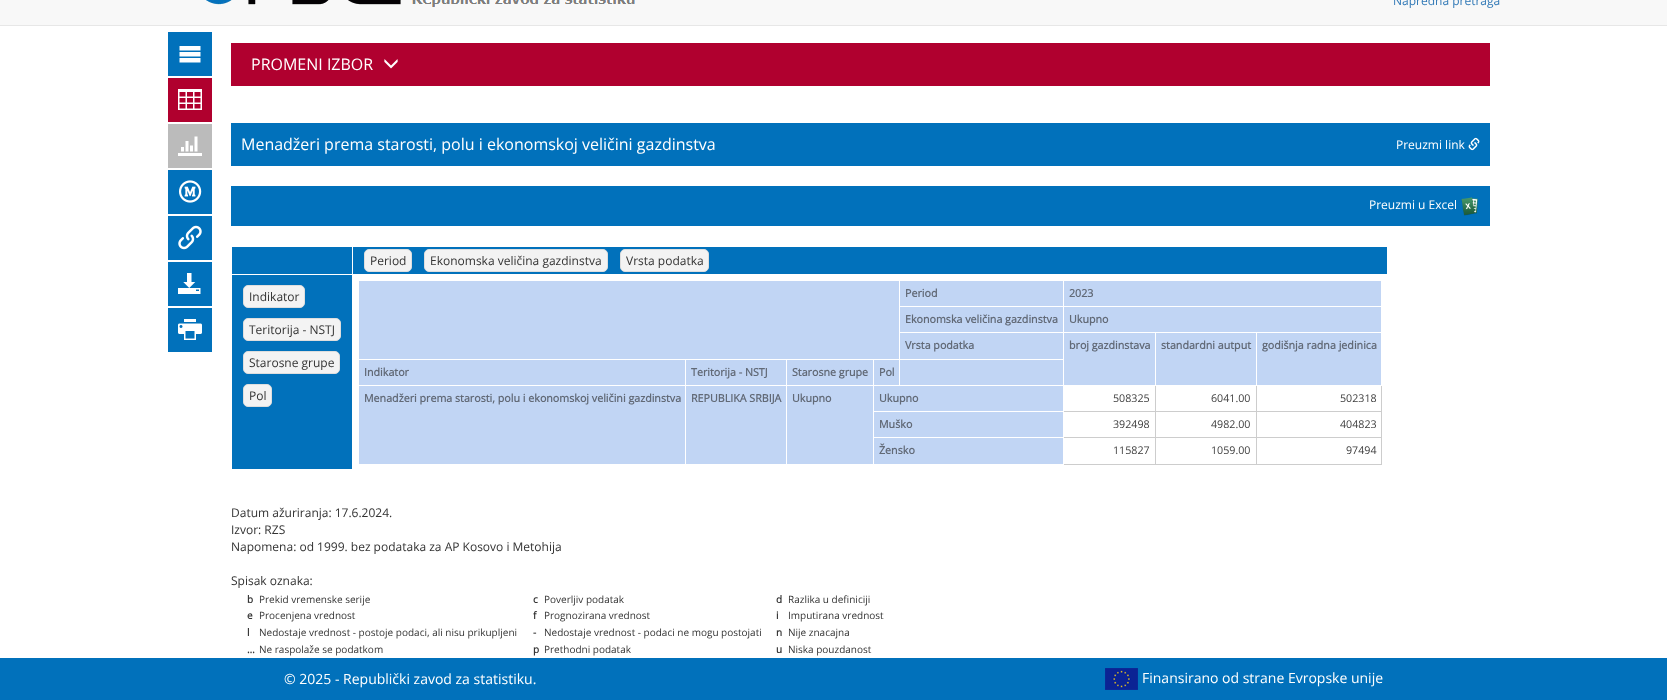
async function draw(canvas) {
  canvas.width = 1667
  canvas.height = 700
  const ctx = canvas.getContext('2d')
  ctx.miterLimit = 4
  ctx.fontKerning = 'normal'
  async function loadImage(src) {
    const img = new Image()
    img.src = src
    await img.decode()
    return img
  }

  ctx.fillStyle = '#fff'
  ctx.fillRect(0, 0, 1667, 700)
  ctx.fillStyle = '#f8f8f8'
  ctx.fillRect(0, 0, 1667, 25)
  ctx.fillStyle = '#e7e7e7'
  ctx.fillRect(0, 25, 1667, 1)
  ctx.drawImage(await loadImage('image0.png'), 206, 0, 429, 7)
  ctx.font = '12px Open Sans'
  ctx.fillStyle = '#337ab7'
  ctx.fillText('Napredna pretraga', 1393, 5)
  ctx.fillStyle = '#0171bb'
  ctx.fillRect(168, 32, 44, 44)
  ctx.drawImage(await loadImage('image1.png'), 179, 46, 22, 17)
  ctx.fillStyle = '#b0002e'
  ctx.fillRect(168, 78, 44, 44)
  ctx.drawImage(await loadImage('image2.png'), 178, 89, 24, 21)
  ctx.fillStyle = '#bbb'
  ctx.fillRect(168, 124, 44, 44)
  ctx.drawImage(await loadImage('image3.png'), 178, 136, 24, 20)
  ctx.fillStyle = '#0171bb'
  ctx.fillRect(168, 170, 44, 44)
  ctx.drawImage(await loadImage('image4.png'), 179, 180, 23, 23)
  ctx.fillRect(168, 216, 44, 44)
  ctx.drawImage(await loadImage('image5.png'), 178, 225, 24, 25)
  ctx.fillRect(168, 262, 44, 44)
  ctx.drawImage(await loadImage('image6.png'), 178, 273, 23, 21)
  ctx.fillRect(168, 308, 44, 44)
  ctx.drawImage(await loadImage('image7.png'), 178, 319, 24, 21)
  ctx.fillStyle = '#b0002f'
  ctx.fillRect(231, 43, 1259, 43)
  ctx.font = '16px Open Sans'
  ctx.fillStyle = '#fff'
  ctx.fillText('PROMENI IZBOR', 251, 70)
  ctx.drawImage(await loadImage('image8.png'), 384, 59, 14, 10)
  ctx.fillStyle = '#0171bb'
  ctx.fillRect(231, 123, 1259, 43)
  ctx.fillStyle = '#fff'
  ctx.fillText('Menadžeri prema starosti, polu i ekonomskoj veličini gazdinstva', 241, 150)
  ctx.font = '12px Open Sans'
  ctx.fillText('Preuzmi link', 1396, 149)
  ctx.drawImage(await loadImage('image9.png'), 1468, 137, 12, 14)
  ctx.fillStyle = '#0171bb'
  ctx.fillRect(231, 186, 1259, 40)
  ctx.fillStyle = '#fff'
  ctx.fillText('Preuzmi u Excel', 1369, 209)
  ctx.drawImage(await loadImage('image10.png'), 1461, 197, 17, 19)
  ctx.fillStyle = '#0171bb'
  ctx.fillRect(232, 247, 120, 27)
  ctx.fillRect(353, 247, 1034, 27)
  ctx.fillStyle = '#f3f3f3'
  ctx.beginPath()
  ctx.roundRect(364.5, 249.5, 47, 22, 4.5)
  ctx.fill()
  ctx.strokeStyle = '#dedede'
  ctx.stroke()
  ctx.fillStyle = '#333'
  ctx.fillText('Period', 370, 265)
  ctx.fillStyle = '#f3f3f3'
  ctx.beginPath()
  ctx.roundRect(424.5, 249.5, 183, 22, 4.5)
  ctx.fill()
  ctx.stroke()
  ctx.fillStyle = '#333'
  ctx.fillText('Ekonomska veličina gazdinstva', 430, 265)
  ctx.fillStyle = '#f3f3f3'
  ctx.beginPath()
  ctx.roundRect(620.5, 249.5, 88, 22, 4.5)
  ctx.fill()
  ctx.stroke()
  ctx.fillStyle = '#333'
  ctx.fillText('Vrsta podatka', 626, 265)
  ctx.fillStyle = '#0171bb'
  ctx.fillRect(232, 275, 120, 194)
  ctx.fillStyle = '#f3f3f3'
  ctx.beginPath()
  ctx.roundRect(243.5, 285.5, 61, 22, 4.5)
  ctx.fill()
  ctx.stroke()
  ctx.fillStyle = '#333'
  ctx.fillText('Indikator', 249, 301)
  ctx.fillStyle = '#f3f3f3'
  ctx.beginPath()
  ctx.roundRect(243.5, 318.5, 97, 22, 4.5)
  ctx.fill()
  ctx.stroke()
  ctx.fillStyle = '#333'
  ctx.fillText('Teritorija - NSTJ', 249, 334)
  ctx.fillStyle = '#f3f3f3'
  ctx.beginPath()
  ctx.roundRect(243.5, 351.5, 96, 22, 4.5)
  ctx.fill()
  ctx.stroke()
  ctx.fillStyle = '#333'
  ctx.fillText('Starosne grupe', 249, 367)
  ctx.fillStyle = '#f3f3f3'
  ctx.beginPath()
  ctx.roundRect(243.5, 384.5, 28, 22, 4.5)
  ctx.fill()
  ctx.stroke()
  ctx.fillStyle = '#333'
  ctx.fillText('Pol', 249, 400)
  ctx.fillStyle = '#c1d5f4'
  ctx.fillRect(359, 281, 540, 78)
  ctx.fillRect(900, 281, 163, 25)
  ctx.font = 'bold 10.7px Open Sans'
  ctx.fillStyle = '#626a77'
  ctx.fillText('Period', 905, 297)
  ctx.fillStyle = '#c1d5f4'
  ctx.fillRect(1064, 281, 317, 25)
  ctx.fillStyle = '#626a77'
  ctx.fillText('2023', 1069, 297)
  ctx.fillStyle = '#c1d5f4'
  ctx.fillRect(900, 307, 163, 25)
  ctx.fillStyle = '#626a77'
  ctx.fillText('Ekonomska veličina gazdinstva', 905, 323)
  ctx.fillStyle = '#c1d5f4'
  ctx.fillRect(1064, 307, 317, 25)
  ctx.fillStyle = '#626a77'
  ctx.fillText('Ukupno', 1069, 323)
  ctx.fillStyle = '#c1d5f4'
  ctx.fillRect(900, 333, 163, 26)
  ctx.fillStyle = '#626a77'
  ctx.fillText('Vrsta podatka', 905, 349)
  ctx.fillStyle = '#c1d5f4'
  ctx.fillRect(1064, 333, 91, 52)
  ctx.fillStyle = '#626a77'
  ctx.fillText('broj gazdinstava', 1069, 349)
  ctx.fillStyle = '#c1d5f4'
  ctx.fillRect(1156, 333, 100, 52)
  ctx.fillStyle = '#cdcdcd'
  ctx.fillRect(1256, 411, 126, 1)
  ctx.fillRect(1256, 437, 126, 1)
  ctx.fillRect(1381, 437, 1, 28)
  ctx.fillRect(1256, 464, 126, 1)
  ctx.fillRect(1256, 437, 1, 28)
  ctx.fillRect(1155, 437, 102, 1)
  ctx.fillRect(1256, 411, 1, 27)
  ctx.fillRect(1155, 411, 102, 1)
  ctx.fillRect(1155, 464, 102, 1)
  ctx.fillRect(1155, 437, 1, 28)
  ctx.fillRect(1155, 385, 1, 53)
  ctx.fillStyle = '#fff'
  ctx.fillRect(1155, 385, 1, 1)
  ctx.fillStyle = '#626a77'
  ctx.fillText('standardni autput', 1161, 349)
  ctx.fillStyle = '#c1d5f4'
  ctx.fillRect(1257, 333, 124, 52)
  ctx.fillStyle = '#cdcdcd'
  ctx.fillRect(1381, 385, 1, 53)
  ctx.fillStyle = '#fff'
  ctx.fillRect(1381, 385, 1, 1)
  ctx.fillStyle = '#cdcdcd'
  ctx.fillRect(1256, 385, 1, 27)
  ctx.fillStyle = '#fff'
  ctx.fillRect(1256, 385, 1, 1)
  ctx.fillStyle = '#626a77'
  ctx.fillText('godišnja radna jedinica', 1262, 349)
  ctx.fillStyle = '#c1d5f4'
  ctx.fillRect(359, 360, 326, 25)
  ctx.fillStyle = '#626a77'
  ctx.fillText('Indikator', 364, 376)
  ctx.fillStyle = '#c1d5f4'
  ctx.fillRect(686, 360, 100, 25)
  ctx.fillStyle = '#626a77'
  ctx.fillText('Teritorija - NSTJ', 691, 376)
  ctx.fillStyle = '#c1d5f4'
  ctx.fillRect(787, 360, 86, 25)
  ctx.fillStyle = '#626a77'
  ctx.fillText('Starosne grupe', 792, 376)
  ctx.fillStyle = '#c1d5f4'
  ctx.fillRect(874, 360, 25, 25)
  ctx.fillStyle = '#626a77'
  ctx.fillText('Pol', 879, 376)
  ctx.fillStyle = '#c1d5f4'
  ctx.fillRect(900, 360, 163, 25)
  ctx.fillRect(359, 386, 326, 78)
  ctx.fillStyle = '#626a77'
  ctx.fillText('Menadžeri prema starosti, polu i ekonomskoj veličini gazdinstva', 364, 402)
  ctx.fillStyle = '#c1d5f4'
  ctx.fillRect(686, 386, 100, 78)
  ctx.fillStyle = '#626a77'
  ctx.fillText('REPUBLIKA SRBIJA', 691, 402)
  ctx.fillStyle = '#c1d5f4'
  ctx.fillRect(787, 386, 86, 78)
  ctx.fillStyle = '#626a77'
  ctx.fillText('Ukupno', 792, 402)
  ctx.fillStyle = '#c1d5f4'
  ctx.fillRect(874, 386, 189, 25)
  ctx.fillStyle = '#cdcdcd'
  ctx.fillRect(1063, 411, 93, 1)
  ctx.fillStyle = '#fff'
  ctx.fillRect(1063, 411, 1, 1)
  ctx.fillStyle = '#626a77'
  ctx.fillText('Ukupno', 879, 402)
  ctx.font = '10.7px Open Sans'
  ctx.fillStyle = '#3d3d3d'
  ctx.fillText('508325', 1113, 402)
  ctx.fillText('6041.00', 1211, 402)
  ctx.fillText('502318', 1340, 402)
  ctx.fillStyle = '#c1d5f4'
  ctx.fillRect(874, 412, 189, 25)
  ctx.fillStyle = '#cdcdcd'
  ctx.fillRect(1063, 437, 93, 1)
  ctx.fillStyle = '#fff'
  ctx.fillRect(1063, 437, 1, 1)
  ctx.font = 'bold 10.7px Open Sans'
  ctx.fillStyle = '#626a77'
  ctx.fillText('Muško', 879, 428)
  ctx.font = '10.7px Open Sans'
  ctx.fillStyle = '#3d3d3d'
  ctx.fillText('392498', 1113, 428)
  ctx.fillText('4982.00', 1211, 428)
  ctx.fillText('404823', 1340, 428)
  ctx.fillStyle = '#c1d5f4'
  ctx.fillRect(874, 438, 189, 26)
  ctx.fillStyle = '#cdcdcd'
  ctx.fillRect(1063, 464, 93, 1)
  ctx.fillStyle = '#fff'
  ctx.fillRect(1063, 464, 1, 1)
  ctx.font = 'bold 10.7px Open Sans'
  ctx.fillStyle = '#626a77'
  ctx.fillText('Žensko', 879, 454)
  ctx.font = '10.7px Open Sans'
  ctx.fillStyle = '#3d3d3d'
  ctx.fillText('115827', 1113, 454)
  ctx.fillText('1059.00', 1211, 454)
  ctx.fillText('97494', 1346, 454)
  ctx.font = '12px Open Sans'
  ctx.fillStyle = '#333'
  ctx.fillText('Datum ažuriranja: 17.6.2024.', 231, 517)
  ctx.fillText('Izvor: RZS', 231, 534)
  ctx.fillText('Napomena: od 1999. bez podataka za AP Kosovo i Metohija', 231, 551)
  ctx.fillText('Spisak oznaka:', 231, 585)
  ctx.font = 'bold 10px Open Sans'
  ctx.fillText('b', 247, 603)
  ctx.font = '10px Open Sans'
  ctx.fillText('Prekid vremenske serije', 259, 603)
  ctx.font = 'bold 10px Open Sans'
  ctx.fillText('c', 533, 603)
  ctx.font = '10px Open Sans'
  ctx.fillText('Poverljiv podatak', 544, 603)
  ctx.font = 'bold 10px Open Sans'
  ctx.fillText('d', 776, 603)
  ctx.font = '10px Open Sans'
  ctx.fillText('Razlika u definiciji', 788, 603)
  ctx.font = 'bold 10px Open Sans'
  ctx.fillText('e', 247, 619)
  ctx.font = '10px Open Sans'
  ctx.fillText('Procenjena vrednost', 259, 619)
  ctx.font = 'bold 10px Open Sans'
  ctx.fillText('f', 533, 619)
  ctx.font = '10px Open Sans'
  ctx.fillText('Prognozirana vrednost', 544, 619)
  ctx.font = 'bold 10px Open Sans'
  ctx.fillText('i', 776, 619)
  ctx.font = '10px Open Sans'
  ctx.fillText('Imputirana vrednost', 788, 619)
  ctx.font = 'bold 10px Open Sans'
  ctx.fillText('l', 247, 636)
  ctx.font = '10px Open Sans'
  ctx.fillText('Nedostaje vrednost - postoje podaci, ali nisu prikupljeni', 259, 636)
  ctx.font = 'bold 10px Open Sans'
  ctx.fillText('-', 533, 636)
  ctx.font = '10px Open Sans'
  ctx.fillText('Nedostaje vrednost - podaci ne mogu postojati', 544, 636)
  ctx.font = 'bold 10px Open Sans'
  ctx.fillText('n', 776, 636)
  ctx.font = '10px Open Sans'
  ctx.fillText('Nije znacajna', 788, 636)
  ctx.font = 'bold 10px Open Sans'
  ctx.fillText('…', 247, 653)
  ctx.font = '10px Open Sans'
  ctx.fillText('Ne raspolaže se podatkom', 259, 653)
  ctx.font = 'bold 10px Open Sans'
  ctx.fillText('p', 533, 653)
  ctx.font = '10px Open Sans'
  ctx.fillText('Prethodni podatak', 544, 653)
  ctx.font = 'bold 10px Open Sans'
  ctx.fillText('u', 776, 653)
  ctx.font = '10px Open Sans'
  ctx.fillText('Niska pouzdanost', 788, 653)
  ctx.fillStyle = '#0171bb'
  ctx.fillRect(0, 658, 1667, 42)
  ctx.font = '14px Open Sans'
  ctx.fillStyle = '#fff'
  ctx.fillText('© 2025 - Republički zavod za statistiku.', 284, 684)
  ctx.drawImage(await loadImage('image11.png'), 1105, 668, 33, 22)
  ctx.fillText('Finansirano od strane Evropske unije', 1142, 683)
}

draw(document.querySelector('canvas'))
